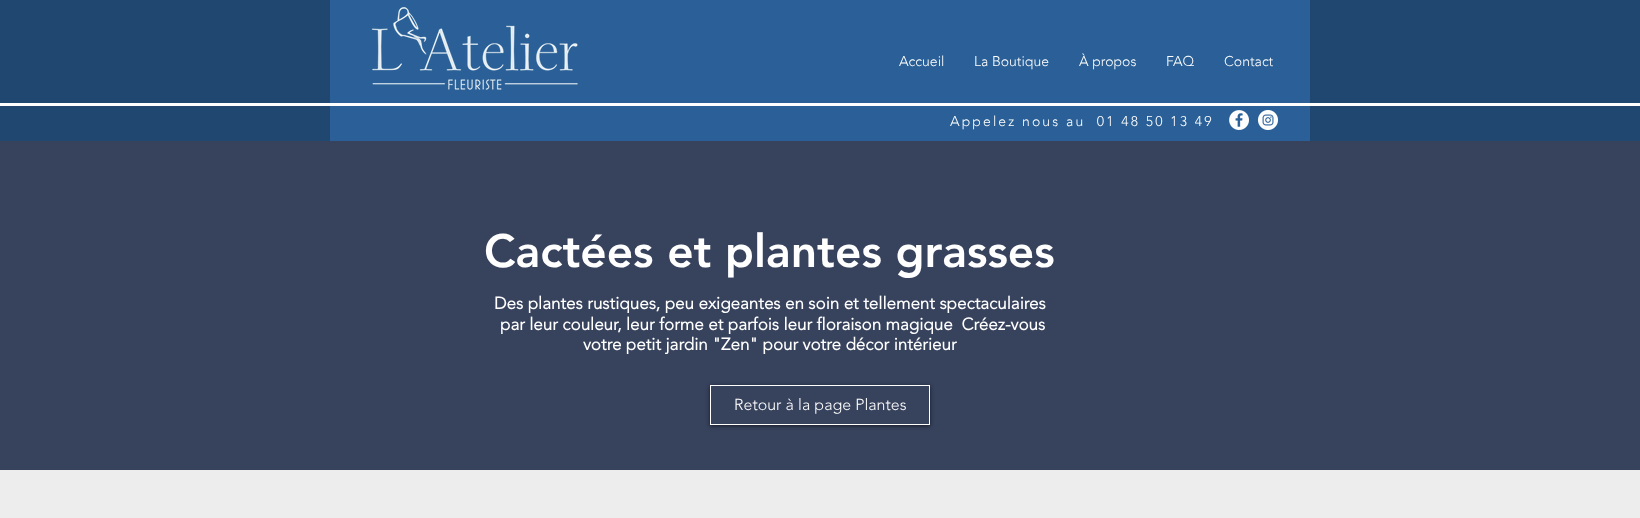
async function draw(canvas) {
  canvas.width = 1640
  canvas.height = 518
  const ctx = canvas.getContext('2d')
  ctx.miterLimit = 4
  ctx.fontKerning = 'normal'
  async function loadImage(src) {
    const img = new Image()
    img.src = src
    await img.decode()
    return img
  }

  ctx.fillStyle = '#ededee'
  ctx.fillRect(0, 0, 1640, 518)
  ctx.fillStyle = '#1f4770'
  ctx.fillRect(0, 0, 1640, 141)
  ctx.fillStyle = '#2a6097'
  ctx.fillRect(330, 0, 980, 141)
  ctx.drawImage(await loadImage('image0.png'), 371, 7, 207, 83)
  ctx.font = '300 14px "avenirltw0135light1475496"'
  ctx.fillStyle = '#fff'
  ctx.fillText('Accueil', 899, 66)
  ctx.fillText('La Boutique', 974, 66)
  ctx.fillText('À propos', 1079, 66)
  ctx.fillText('FAQ', 1166, 66)
  ctx.fillText('Contact', 1224, 66)
  ctx.fillRect(0, 103, 1640, 3)
  ctx.letterSpacing = '2.1px'
  ctx.fillText('Appelez nous au  01 48 50 13 49', 950, 126)
  ctx.drawImage(await loadImage('image1.png'), 1229, 110, 20, 20)
  ctx.drawImage(await loadImage('image2.png'), 1258, 110, 20, 20)
  ctx.fillStyle = '#37425d'
  ctx.fillRect(0, 141, 1640, 329)
  ctx.letterSpacing = '0px'
  ctx.font = '900 46px "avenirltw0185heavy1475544"'
  ctx.fillStyle = '#fff'
  ctx.fillText('Cactées et plantes grasses', 484, 267)
  ctx.font = 'bold 17px "avenirltw0135light1475496"'
  ctx.fillText('Des plantes rustiques, peu exigeantes en soin et tellement spectaculaires', 494, 309)
  ctx.fillText('par leur couleur, leur forme et parfois leur floraison magique  Créez-vous', 500, 330)
  ctx.fillText('votre petit jardin "Zen" pour votre décor intérieur', 583, 350)
  ctx.save()
  ctx.beginPath()
  ctx.moveTo(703, 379)
  ctx.lineTo(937, 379)
  ctx.lineTo(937, 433)
  ctx.lineTo(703, 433)
  ctx.closePath()
  ctx.moveTo(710, 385)
  ctx.lineTo(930, 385)
  ctx.lineTo(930, 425)
  ctx.lineTo(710, 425)
  ctx.closePath()
  ctx.clip('evenodd')
  ctx.fillStyle = '#00000099'
  ctx.filter = 'blur(2px)'
  ctx.beginPath()
  ctx.rect(710, 386, 220, 40)
  ctx.fill()
  ctx.filter = 'none'
  ctx.restore()
  ctx.strokeStyle = '#fff'
  ctx.strokeRect(710.5, 385.5, 219, 39)
  ctx.font = '300 16px "avenirltw0135light1475496"'
  ctx.fillText('Retour à la page Plantes', 734, 410)
}

draw(document.querySelector('canvas'))
